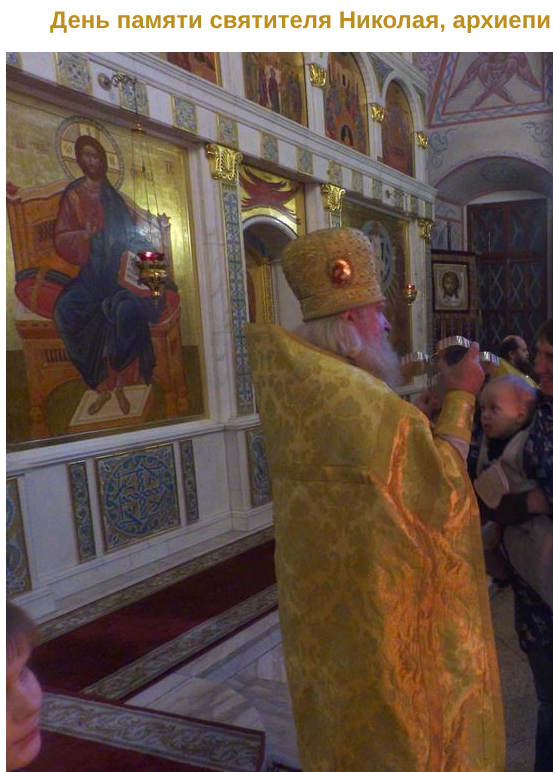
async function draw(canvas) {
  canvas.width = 553
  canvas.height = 772
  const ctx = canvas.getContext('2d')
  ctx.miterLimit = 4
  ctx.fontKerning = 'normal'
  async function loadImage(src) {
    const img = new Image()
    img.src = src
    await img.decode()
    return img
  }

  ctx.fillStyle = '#fff'
  ctx.fillRect(0, 0, 553, 772)
  ctx.font = 'bold 24px Liberation Sans'
  ctx.fillStyle = '#bc8d1f'
  ctx.fillText('День памяти святителя Николая, архиепи', 50, 28)
  ctx.drawImage(await loadImage('image0.png'), 6, 52, 547, 720)
}

draw(document.querySelector('canvas'))
